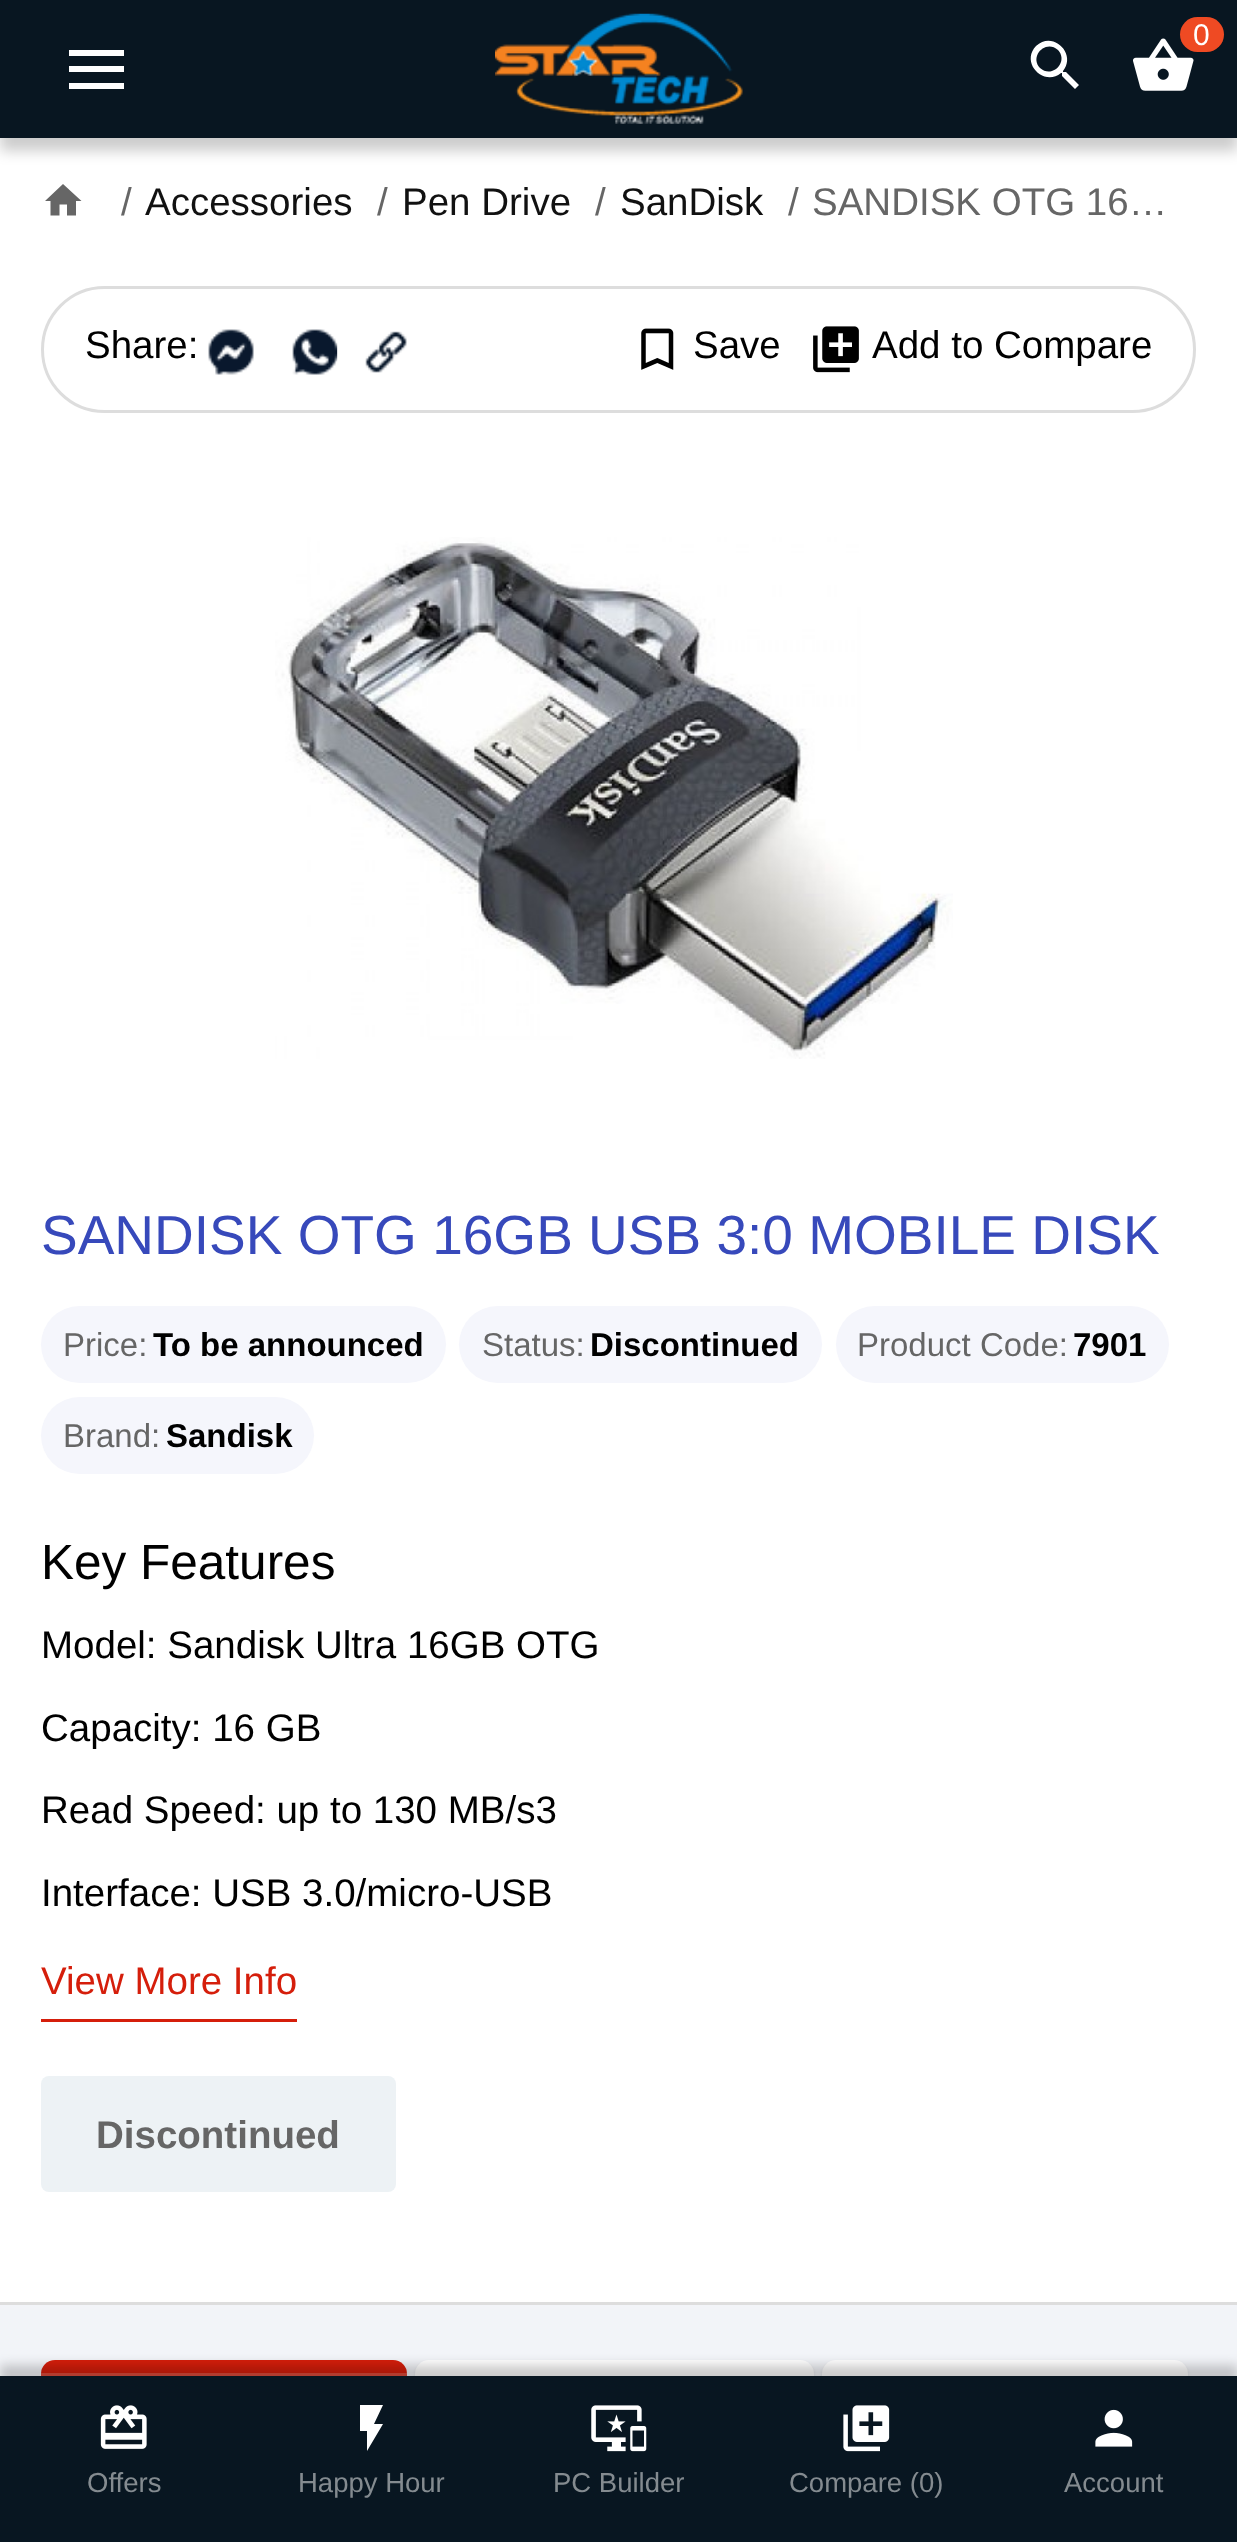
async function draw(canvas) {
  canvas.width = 1237
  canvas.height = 2542
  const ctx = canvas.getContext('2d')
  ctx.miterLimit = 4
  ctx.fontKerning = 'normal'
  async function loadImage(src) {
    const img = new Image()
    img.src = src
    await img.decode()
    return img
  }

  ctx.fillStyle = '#fff'
  ctx.fillRect(0, 0, 1237, 2542)
  ctx.fillStyle = '#00000033'
  ctx.filter = 'blur(7px)'
  ctx.beginPath()
  ctx.rect(0, 14, 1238, 137)
  ctx.fill()
  ctx.filter = 'none'
  ctx.fillStyle = '#081621'
  ctx.fillRect(0, 0, 1237, 138)
  ctx.drawImage(await loadImage('image0.png'), 495, 13, 248, 111)
  ctx.drawImage(await loadImage('image1.png'), 1133, 38, 61, 53)
  ctx.fillStyle = '#ef4a23'
  ctx.beginPath()
  ctx.roundRect(1180, 17, 44, 35, 17.5)
  ctx.fill()
  ctx.font = '30px Liberation Sans'
  ctx.fillStyle = '#fff'
  ctx.fillText('0', 1193, 45)
  ctx.beginPath()
  ctx.moveTo(1040, 68)
  ctx.bezierCurveTo(1052, 79, 1069, 62, 1058, 50)
  ctx.bezierCurveTo(1046, 39, 1029, 56, 1040, 68)
  ctx.closePath()
  ctx.moveTo(1066, 72)
  ctx.lineTo(1079, 85)
  ctx.lineTo(1075, 89)
  ctx.lineTo(1062, 76)
  ctx.lineTo(1062, 73)
  ctx.lineTo(1061, 73)
  ctx.bezierCurveTo(1044, 87, 1020, 63, 1036, 46)
  ctx.bezierCurveTo(1053, 30, 1077, 54, 1063, 71)
  ctx.lineTo(1063, 72)
  ctx.closePath()
  ctx.fill()
  ctx.fillRect(69, 50, 55, 6)
  ctx.fillRect(69, 66, 55, 6)
  ctx.fillRect(69, 83, 55, 6)
  ctx.fillStyle = '#f2f4f8'
  ctx.fillRect(0, 2305, 1237, 71)
  ctx.fillStyle = '#d51e0b'
  ctx.beginPath()
  ctx.roundRect(41, 2360, 366, 110, 14)
  ctx.fill()
  ctx.fillStyle = '#0000001a'
  ctx.filter = 'blur(1.5px)'
  ctx.beginPath()
  ctx.roundRect(415, 2362, 399, 110, 14)
  ctx.fill()
  ctx.filter = 'none'
  ctx.fillStyle = '#fff'
  ctx.beginPath()
  ctx.roundRect(415, 2360, 399, 110, 14)
  ctx.fill()
  ctx.fillStyle = '#0000001a'
  ctx.filter = 'blur(1.5px)'
  ctx.beginPath()
  ctx.roundRect(822, 2362, 366, 110, 14)
  ctx.fill()
  ctx.filter = 'none'
  ctx.fillStyle = '#fff'
  ctx.beginPath()
  ctx.roundRect(822, 2360, 366, 110, 14)
  ctx.fill()
  ctx.fillStyle = '#ffffff33'
  ctx.beginPath()
  ctx.moveTo(0, 2373)
  ctx.lineTo(0, 2376)
  ctx.lineTo(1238, 2376)
  ctx.lineTo(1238, 2541)
  ctx.lineTo(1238, 2373)
  ctx.closePath()
  ctx.fill()
  ctx.fillStyle = '#00000033'
  ctx.filter = 'blur(5.5px)'
  ctx.beginPath()
  ctx.rect(0, 2365, 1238, 168)
  ctx.fill()
  ctx.filter = 'none'
  ctx.fillStyle = '#081621'
  ctx.fillRect(0, 2376, 1237, 166)
  ctx.drawImage(await loadImage('image2.png'), 100, 2405, 47, 44)
  ctx.font = '27.5px Liberation Sans'
  ctx.fillStyle = '#848b90'
  ctx.fillText('Offers', 87, 2492)
  ctx.fillStyle = '#fff'
  ctx.beginPath()
  ctx.moveTo(360, 2405)
  ctx.lineTo(383, 2405)
  ctx.lineTo(374, 2424)
  ctx.lineTo(383, 2424)
  ctx.lineTo(367, 2451)
  ctx.lineTo(367, 2431)
  ctx.lineTo(360, 2431)
  ctx.closePath()
  ctx.fill()
  ctx.fillStyle = '#848b90'
  ctx.fillText('Happy Hour', 298, 2492)
  ctx.drawImage(await loadImage('image3.png'), 591, 2405, 56, 47)
  ctx.fillText('PC Builder', 553, 2492)
  ctx.drawImage(await loadImage('image4.png'), 843, 2405, 47, 47)
  ctx.fillText('Compare (0)', 789, 2492)
  ctx.drawImage(await loadImage('image5.png'), 1095, 2409, 38, 38)
  ctx.fillText('Account', 1064, 2492)
  ctx.fillStyle = '#666'
  ctx.beginPath()
  ctx.moveTo(59.5, 215.5)
  ctx.lineTo(50.5, 215.5)
  ctx.lineTo(50.5, 201)
  ctx.lineTo(45, 201)
  ctx.lineTo(63, 184)
  ctx.lineTo(81.5, 201)
  ctx.lineTo(76, 201)
  ctx.lineTo(76, 215.5)
  ctx.lineTo(67, 215.5)
  ctx.lineTo(67, 204.5)
  ctx.lineTo(59.5, 204.5)
  ctx.closePath()
  ctx.fill()
  ctx.font = '38.5px Liberation Sans'
  ctx.fillText('/', 121, 215)
  ctx.fillStyle = '#111'
  ctx.fillText('Accessories', 145, 215)
  ctx.fillStyle = '#666'
  ctx.fillText('/', 377, 215)
  ctx.fillStyle = '#111'
  ctx.fillText('Pen Drive', 402, 215)
  ctx.fillStyle = '#666'
  ctx.fillText('/', 595, 215)
  ctx.fillStyle = '#111'
  ctx.fillText('SanDisk', 620, 215)
  ctx.fillStyle = '#666'
  ctx.fillText('/', 788, 215)
  ctx.fillText('SANDISK OTG 16…', 812, 215)
  ctx.beginPath()
  ctx.roundRect(42.5, 287.5, 1152, 124, 62)
  ctx.strokeStyle = '#ddd'
  ctx.lineWidth = 3
  ctx.stroke()
  ctx.fillStyle = '#000'
  ctx.fillText('Share:', 85, 358)
  ctx.drawImage(await loadImage('image6.png'), 208, 329, 46, 46)
  ctx.drawImage(await loadImage('image7.png'), 292, 329, 46, 46)
  ctx.drawImage(await loadImage('image8.png'), 365, 331, 42, 42)
  ctx.drawImage(await loadImage('image9.png'), 641, 328, 33, 42)
  ctx.fillText('Save', 693, 358)
  ctx.drawImage(await loadImage('image10.png'), 813, 326, 46, 47)
  ctx.fillText('Add to Compare', 872, 358)
  ctx.drawImage(await loadImage('image11.png'), 275, 537, 678, 522)
  ctx.font = '55px Liberation Sans'
  ctx.fillStyle = '#3749bb'
  ctx.fillText('SANDISK OTG 16GB USB 3:0 MOBILE DISK', 41, 1254)
  ctx.fillStyle = '#f5f6fc'
  ctx.beginPath()
  ctx.roundRect(41, 1306, 405, 77, 38.5)
  ctx.fill()
  ctx.font = '33px Liberation Sans'
  ctx.fillStyle = '#666'
  ctx.fillText('Price:', 63, 1356)
  ctx.font = 'bold 33px Liberation Sans'
  ctx.fillStyle = '#000'
  ctx.fillText('To be announced', 153, 1356)
  ctx.fillStyle = '#f5f6fc'
  ctx.beginPath()
  ctx.roundRect(459, 1306, 363, 77, 38.5)
  ctx.fill()
  ctx.font = '33px Liberation Sans'
  ctx.fillStyle = '#666'
  ctx.fillText('Status:', 482, 1356)
  ctx.font = 'bold 33px Liberation Sans'
  ctx.fillStyle = '#000'
  ctx.fillText('Discontinued', 590, 1356)
  ctx.fillStyle = '#f5f6fc'
  ctx.beginPath()
  ctx.roundRect(836, 1306, 333, 77, 38.5)
  ctx.fill()
  ctx.font = '33px Liberation Sans'
  ctx.fillStyle = '#666'
  ctx.fillText('Product Code:', 857, 1356)
  ctx.font = 'bold 33px Liberation Sans'
  ctx.fillStyle = '#000'
  ctx.fillText('7901', 1073, 1356)
  ctx.fillStyle = '#f5f6fc'
  ctx.beginPath()
  ctx.roundRect(41, 1397, 273, 77, 38.5)
  ctx.fill()
  ctx.font = '33px Liberation Sans'
  ctx.fillStyle = '#666'
  ctx.fillText('Brand:', 63, 1447)
  ctx.font = 'bold 33px Liberation Sans'
  ctx.fillStyle = '#000'
  ctx.fillText('Sandisk', 166, 1447)
  ctx.font = '49.5px Liberation Sans'
  ctx.fillText('Key Features', 41, 1579)
  ctx.font = '38.5px Liberation Sans'
  ctx.fillText('Model: Sandisk Ultra 16GB OTG', 41, 1658)
  ctx.fillText('Capacity: 16 GB', 41, 1741)
  ctx.fillText('Read Speed: up to 130 MB/s3', 41, 1823)
  ctx.fillText('Interface: USB 3.0/micro-USB', 41, 1906)
  ctx.fillStyle = '#d51e0b'
  ctx.fillRect(41, 2019, 256, 3)
  ctx.fillText('View More Info', 41, 1994)
  ctx.fillStyle = '#edf2f5'
  ctx.beginPath()
  ctx.roundRect(41, 2076, 355, 116, 8)
  ctx.fill()
  ctx.font = 'bold 38.5px Liberation Sans'
  ctx.fillStyle = '#666'
  ctx.fillText('Discontinued', 96, 2148)
  ctx.fillStyle = '#ddd'
  ctx.fillRect(0, 2302, 1237, 3)
}

draw(document.querySelector('canvas'))
